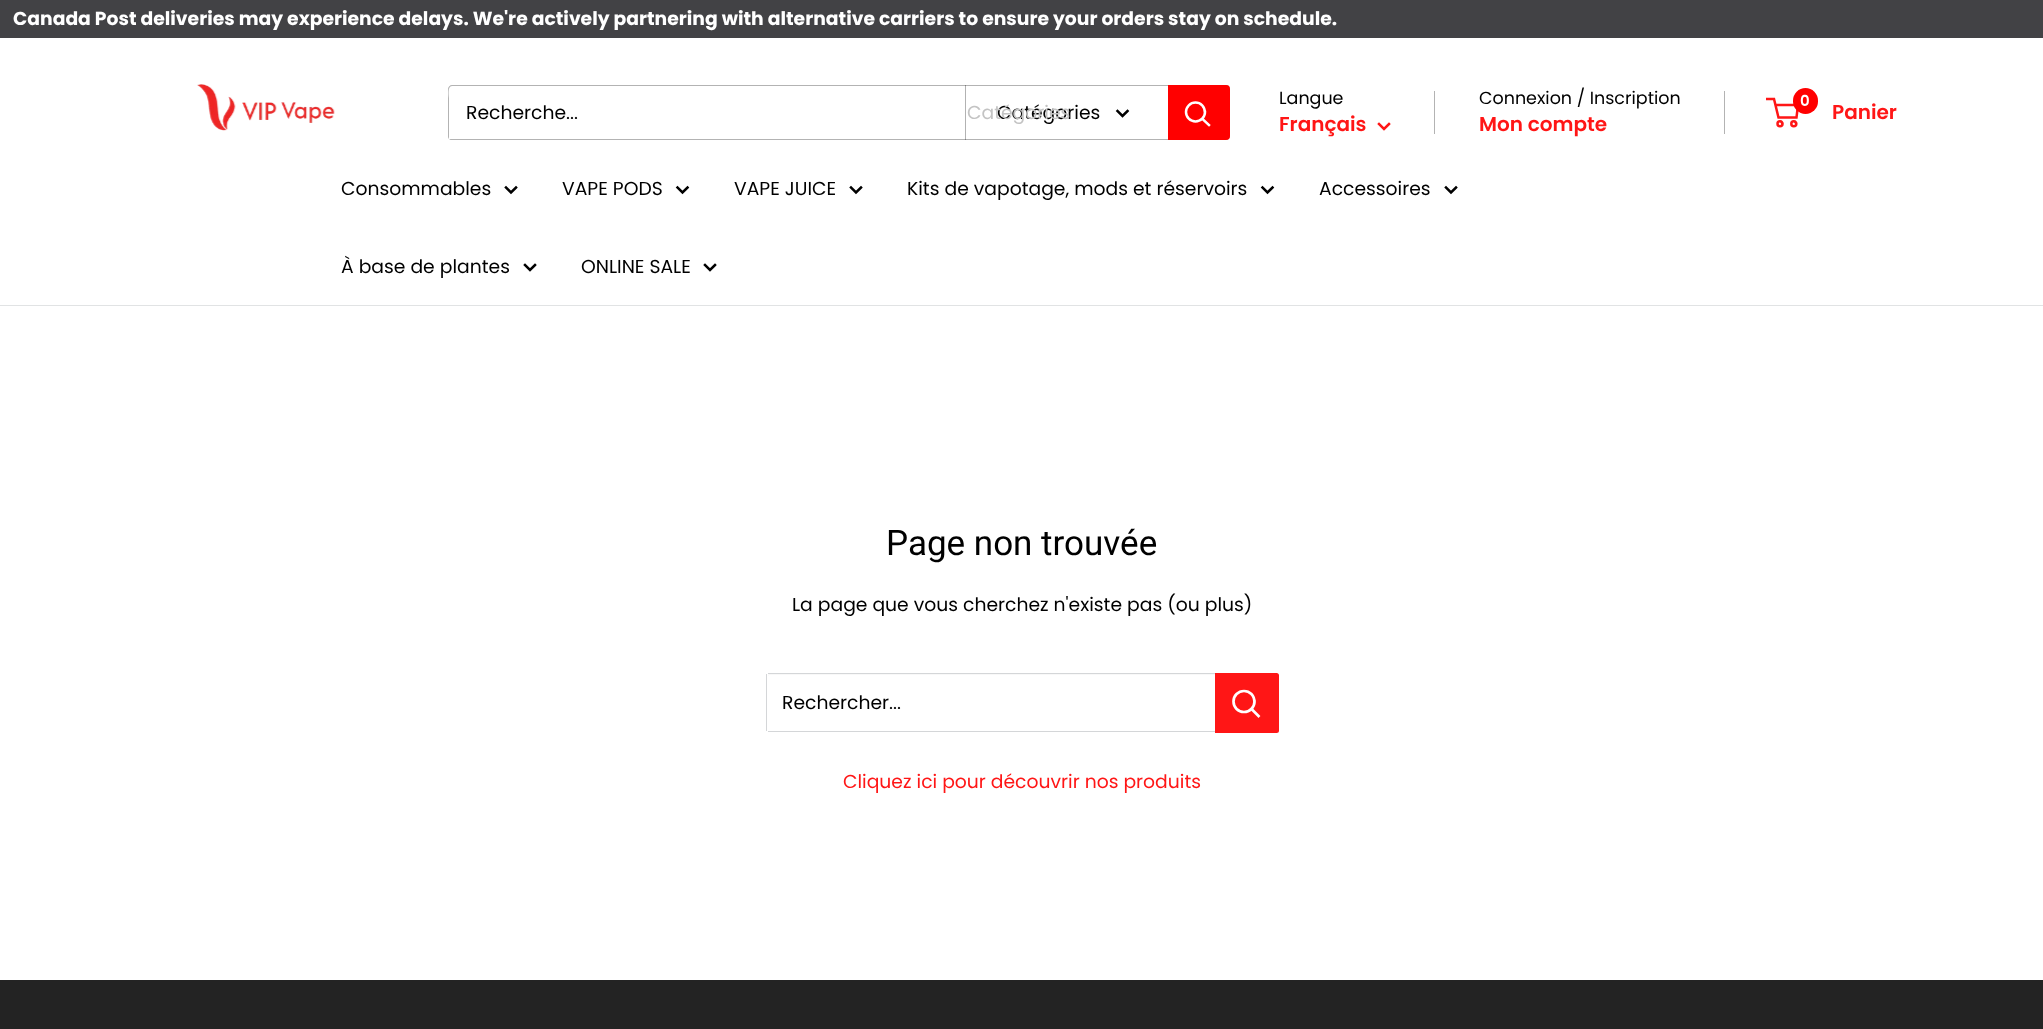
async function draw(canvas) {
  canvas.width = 2043
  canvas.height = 1029
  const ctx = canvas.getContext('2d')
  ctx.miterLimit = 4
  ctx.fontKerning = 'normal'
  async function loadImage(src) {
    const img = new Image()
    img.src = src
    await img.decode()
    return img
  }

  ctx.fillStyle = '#fff'
  ctx.fillRect(0, 0, 2043, 1029)
  ctx.fillStyle = '#424245'
  ctx.fillRect(0, 0, 2043, 38)
  ctx.font = 'bold 18.75px Poppins'
  ctx.fillStyle = '#fff'
  ctx.fillText('Canada Post deliveries may experience delays. We\'re actively partnering with alternative carriers to ensure your orders stay on schedule.', 13, 25)
  ctx.drawImage(await loadImage('image0.png'), 197, 84, 138, 47)
  ctx.fillStyle = '#b3b3b3'
  ctx.beginPath()
  ctx.moveTo(449, 139)
  ctx.bezierCurveTo(450, 140, 451, 140, 452, 140)
  ctx.lineTo(1226, 140)
  ctx.bezierCurveTo(1228, 140, 1230, 138, 1230, 136)
  ctx.lineTo(1230, 89)
  ctx.bezierCurveTo(1230, 88, 1229, 87, 1229, 86)
  ctx.lineTo(1229, 127)
  ctx.bezierCurveTo(1229, 130, 1231, 139, 1225, 139)
  ctx.closePath()
  ctx.fill()
  ctx.beginPath()
  ctx.moveTo(452, 86)
  ctx.lineTo(1229, 86)
  ctx.bezierCurveTo(1228, 85, 1227, 85, 1226, 85)
  ctx.lineTo(452, 85)
  ctx.bezierCurveTo(450, 85, 448, 87, 448, 89)
  ctx.lineTo(448, 136)
  ctx.bezierCurveTo(448, 137, 448, 138, 449, 139)
  ctx.lineTo(449, 98)
  ctx.bezierCurveTo(449, 97, 447, 86, 452, 86)
  ctx.closePath()
  ctx.fill()
  ctx.font = '18.75px Poppins'
  ctx.fillStyle = '#000'
  ctx.fillText('Recherche...', 466, 119)
  ctx.fillStyle = '#0000004d'
  ctx.fillRect(965, 85, 1, 55)
  ctx.fillStyle = '#000'
  ctx.fillText('Catégories', 997, 119)
  ctx.fillStyle = '#c3c3c3'
  ctx.fillText('Catégories', 967, 119)
  ctx.beginPath()
  ctx.moveTo(1127.5, 111)
  ctx.lineTo(1122.5, 116)
  ctx.lineTo(1117.5, 111)
  ctx.strokeStyle = '#000'
  ctx.lineWidth = 2.5
  ctx.lineCap = 'square'
  ctx.stroke()
  ctx.fillStyle = '#f00'
  ctx.beginPath()
  ctx.roundRect(1168, 85, 62, 55, [0, 4, 4, 0])
  ctx.fill()
  ctx.beginPath()
  ctx.moveTo(1209, 125)
  ctx.lineTo(1202.5, 119)
  ctx.strokeStyle = '#fff'
  ctx.stroke()
  ctx.beginPath()
  ctx.arc(1195.5, 112, 9.5, 0, 2 * Math.PI)
  ctx.stroke()
  ctx.font = '17.5px Poppins'
  ctx.fillStyle = '#000'
  ctx.fillText('Langue', 1279, 104)
  ctx.font = '600 20px Poppins'
  ctx.fillStyle = '#ff1616'
  ctx.fillText('Français', 1279, 131)
  ctx.beginPath()
  ctx.moveTo(1389, 124)
  ctx.lineTo(1384, 129)
  ctx.lineTo(1379, 124)
  ctx.strokeStyle = '#ff1616'
  ctx.stroke()
  ctx.fillStyle = '#b3b3b3'
  ctx.fillRect(1434, 91, 1, 43)
  ctx.font = '17.5px Poppins'
  ctx.fillStyle = '#000'
  ctx.fillText('Connexion / Inscription', 1479, 104)
  ctx.fillStyle = '#b3b3b3'
  ctx.fillRect(1724, 91, 1, 43)
  ctx.font = '600 20px Poppins'
  ctx.fillStyle = '#ff1616'
  ctx.fillText('Mon compte', 1479, 131)
  ctx.beginPath()
  ctx.arc(1780, 123.8, 2.5, 0, 2 * Math.PI)
  ctx.stroke()
  ctx.beginPath()
  ctx.arc(1793.8, 123.8, 2.5, 0, 2 * Math.PI)
  ctx.stroke()
  ctx.beginPath()
  ctx.moveTo(1775.5, 105)
  ctx.lineTo(1798, 105)
  ctx.lineTo(1796.5, 117.5)
  ctx.lineTo(1778.5, 117.5)
  ctx.lineTo(1774, 99)
  ctx.lineTo(1766, 99)
  ctx.lineCap = 'butt'
  ctx.stroke()
  ctx.fillStyle = '#f00'
  ctx.beginPath()
  ctx.roundRect(1793, 88, 25, 26, 12.5)
  ctx.fill()
  ctx.font = '600 15px Poppins'
  ctx.fillStyle = '#fff'
  ctx.fillText('0', 1800, 106)
  ctx.font = '600 20px Poppins'
  ctx.fillStyle = '#ff1616'
  ctx.fillText('Panier', 1832, 119)
  ctx.fillStyle = '#e1e3e4'
  ctx.fillRect(0, 305, 2043, 1)
  ctx.font = '18.75px Poppins'
  ctx.fillStyle = '#000'
  ctx.fillText('Consommables', 341, 195)
  ctx.beginPath()
  ctx.moveTo(516, 187.5)
  ctx.lineTo(511, 192.5)
  ctx.lineTo(506, 187.5)
  ctx.strokeStyle = '#000'
  ctx.lineCap = 'square'
  ctx.stroke()
  ctx.fillText('VAPE PODS', 562, 195)
  ctx.beginPath()
  ctx.moveTo(687.5, 187.5)
  ctx.lineTo(682.5, 192.5)
  ctx.lineTo(677.5, 187.5)
  ctx.stroke()
  ctx.fillText('VAPE JUICE', 734, 195)
  ctx.beginPath()
  ctx.moveTo(861, 187.5)
  ctx.lineTo(856, 192.5)
  ctx.lineTo(851, 187.5)
  ctx.stroke()
  ctx.fillText('Kits de vapotage, mods et réservoirs', 907, 195)
  ctx.beginPath()
  ctx.moveTo(1272.5, 187.5)
  ctx.lineTo(1267.5, 192.5)
  ctx.lineTo(1262.5, 187.5)
  ctx.stroke()
  ctx.fillText('Accessoires', 1319, 195)
  ctx.beginPath()
  ctx.moveTo(1456, 187.5)
  ctx.lineTo(1451, 192.5)
  ctx.lineTo(1446, 187.5)
  ctx.stroke()
  ctx.fillText('À base de plantes', 341, 273)
  ctx.beginPath()
  ctx.moveTo(535, 265)
  ctx.lineTo(530, 270)
  ctx.lineTo(525, 265)
  ctx.stroke()
  ctx.fillText('ONLINE SALE', 581, 273)
  ctx.beginPath()
  ctx.moveTo(715, 265)
  ctx.lineTo(710, 270)
  ctx.lineTo(705, 265)
  ctx.stroke()
  ctx.font = '35px Roboto'
  ctx.fillText('Page non trouvée', 886, 555)
  ctx.font = '18.75px Poppins'
  ctx.fillText('La page que vous cherchez n\'existe pas (ou plus)', 792, 611)
  ctx.fillStyle = '#f8f8f8'
  ctx.beginPath()
  ctx.moveTo(769, 675)
  ctx.lineTo(1215, 675)
  ctx.lineTo(1215, 674)
  ctx.lineTo(769, 674)
  ctx.lineTo(768, 675)
  ctx.lineTo(768, 676)
  ctx.closePath()
  ctx.fill()
  ctx.fillStyle = '#d4d6d8'
  ctx.fillRect(768, 673, 447, 1)
  ctx.fillRect(768, 731, 447, 1)
  ctx.fillRect(766, 674, 1, 57)
  ctx.fillStyle = '#000'
  ctx.fillText('Rechercher...', 782, 709)
  ctx.fillStyle = '#ff1616'
  ctx.beginPath()
  ctx.roundRect(1215, 673, 64, 60, [0, 2.5, 2.5, 0])
  ctx.fill()
  ctx.beginPath()
  ctx.moveTo(1258.5, 716)
  ctx.lineTo(1251.5, 709)
  ctx.strokeStyle = '#fff'
  ctx.lineWidth = 2.7
  ctx.stroke()
  ctx.beginPath()
  ctx.arc(1244, 701.5, 10.5, 0, 2 * Math.PI)
  ctx.stroke()
  ctx.fillText('Cliquez ici pour découvrir nos produits', 843, 788)
  ctx.fillStyle = '#232323'
  ctx.fillRect(0, 980, 2043, 49)
}

draw(document.querySelector('canvas'))
